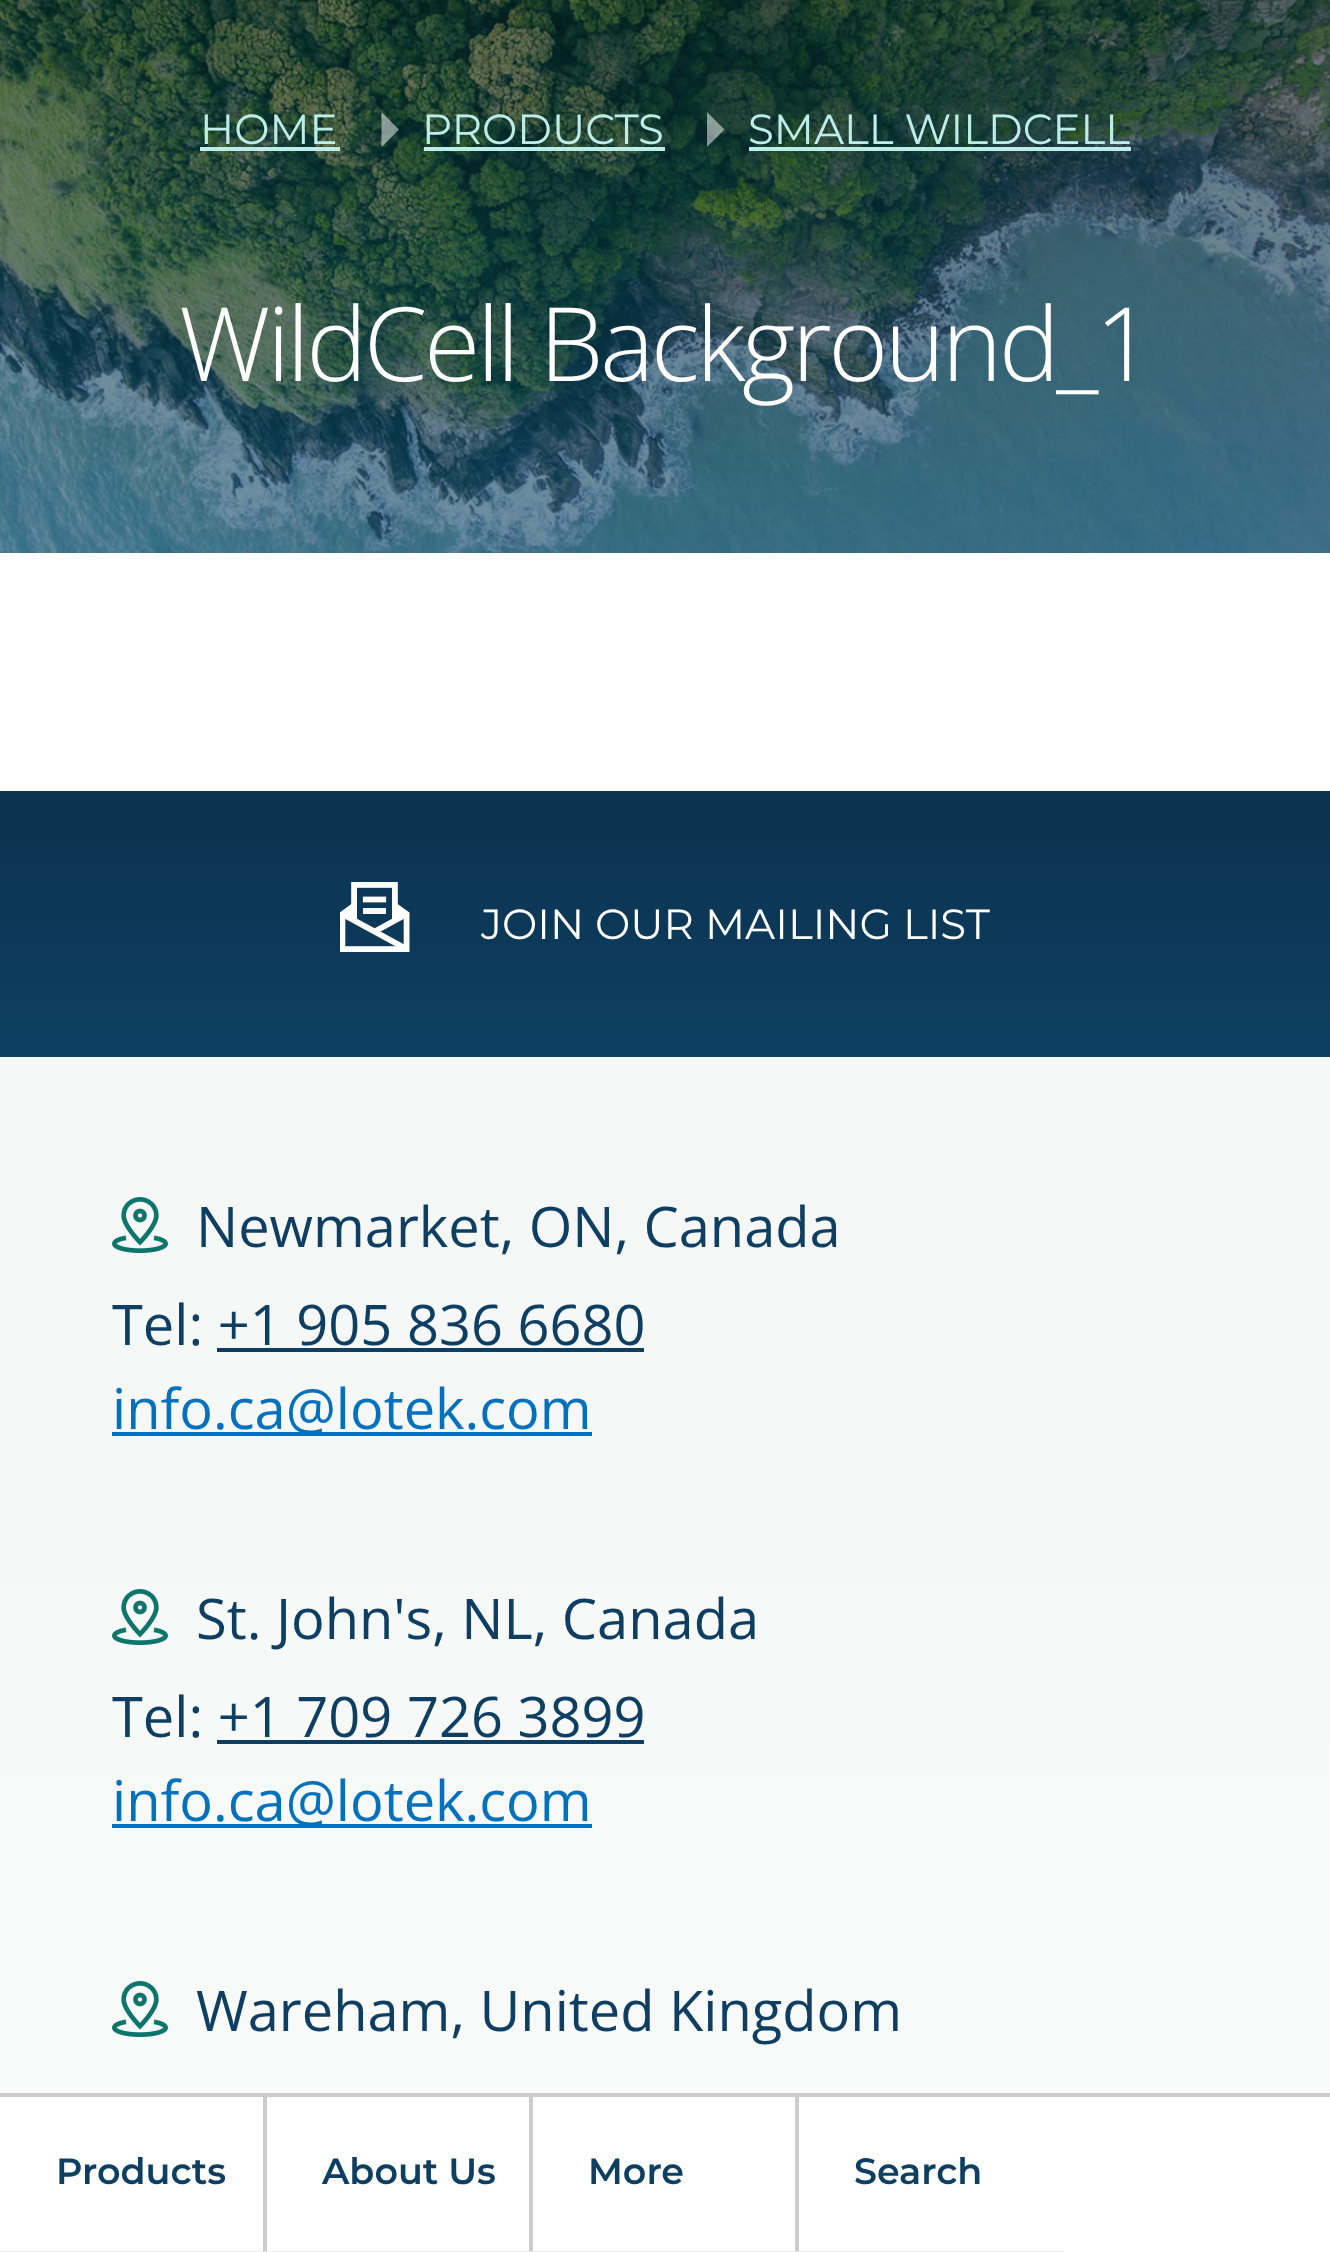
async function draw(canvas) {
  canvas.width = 1330
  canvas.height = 2252
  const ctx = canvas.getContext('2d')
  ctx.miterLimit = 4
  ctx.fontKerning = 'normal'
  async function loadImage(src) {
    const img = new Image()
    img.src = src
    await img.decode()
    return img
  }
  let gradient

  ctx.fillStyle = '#fff'
  ctx.fillRect(0, 0, 1330, 2252)
  ctx.drawImage(await loadImage('image0.png'), 0, 0, 1330, 553)
  ctx.font = '42px Montserrat'
  ctx.fillStyle = '#bcede8'
  ctx.fillText('HOME', 200, 144)
  ctx.fillRect(200, 147, 140, 4)
  ctx.fillStyle = '#ffffff80'
  ctx.beginPath()
  ctx.moveTo(381.5, 147)
  ctx.lineTo(381.5, 112)
  ctx.lineTo(399, 129.5)
  ctx.closePath()
  ctx.fill()
  ctx.fillStyle = '#bcede8'
  ctx.fillText('PRODUCTS', 422, 144)
  ctx.fillRect(424, 147, 241, 4)
  ctx.fillStyle = '#ffffff80'
  ctx.beginPath()
  ctx.moveTo(707, 147)
  ctx.lineTo(707, 112)
  ctx.lineTo(724.5, 129.5)
  ctx.closePath()
  ctx.fill()
  ctx.fillStyle = '#bcede8'
  ctx.fillText('SMALL WILDCELL', 748, 144)
  ctx.fillRect(749, 147, 382, 4)
  ctx.letterSpacing = '-3.5px'
  ctx.font = '300 102.5px Open Sans'
  ctx.fillStyle = '#fff'
  ctx.fillText('WildCell Background_1', 179, 381)
  gradient = ctx.createLinearGradient(665, 791, 665, 1057)
  gradient.addColorStop(0, '#0b324e')
  gradient.addColorStop(1, '#0e3f62')
  ctx.fillStyle = gradient
  ctx.fillRect(0, 791, 1330, 266)
  ctx.drawImage(await loadImage('image1.png'), 340, 882, 70, 70)
  ctx.letterSpacing = '0px'
  ctx.font = '42px Montserrat'
  ctx.fillStyle = '#fff'
  ctx.fillText('JOIN OUR MAILING LIST', 481, 939)
  gradient = ctx.createLinearGradient(665, 1057, 665, 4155)
  gradient.addColorStop(0, '#f5f7f7')
  gradient.addColorStop(1, '#fff')
  ctx.fillStyle = gradient
  ctx.fillRect(0, 1057, 1330, 1036)
  ctx.drawImage(await loadImage('image2.png'), 112, 1197, 56, 56)
  ctx.font = '56px Open Sans'
  ctx.fillStyle = '#0e3f62'
  ctx.fillText('Newmarket, ON, Canada', 196, 1247)
  ctx.fillText('Tel: +1 905 836 6680', 112, 1345)
  ctx.fillRect(217, 1348, 427, 4)
  ctx.fillStyle = '#0071bc'
  ctx.fillRect(112, 1432, 480, 4)
  ctx.fillText('info.ca@lotek.com', 112, 1429)
  ctx.drawImage(await loadImage('image3.png'), 112, 1589, 56, 56)
  ctx.fillStyle = '#0e3f62'
  ctx.fillText('St. John\'s, NL, Canada', 196, 1639)
  ctx.fillText('Tel: +1 709 726 3899', 112, 1737)
  ctx.fillRect(217, 1740, 427, 4)
  ctx.fillStyle = '#0071bc'
  ctx.fillRect(112, 1824, 480, 4)
  ctx.fillText('info.ca@lotek.com', 112, 1821)
  ctx.drawImage(await loadImage('image4.png'), 112, 1981, 56, 56)
  ctx.fillStyle = '#0e3f62'
  ctx.fillText('Wareham, United Kingdom', 196, 2031)
  ctx.fillStyle = '#ccc'
  ctx.fillRect(0, 2093, 1330, 4)
  ctx.fillRect(263, 2097, 4, 155)
  ctx.fillStyle = '#ebebeb'
  ctx.fillRect(0, 2251, 266, 1)
  ctx.font = '600 36.5px Montserrat'
  ctx.fillStyle = '#0e3f62'
  ctx.fillText('Products', 56, 2184)
  ctx.fillStyle = '#ccc'
  ctx.fillRect(529, 2097, 4, 155)
  ctx.fillStyle = '#ebebeb'
  ctx.fillRect(266, 2251, 266, 1)
  ctx.fillStyle = '#0e3f62'
  ctx.fillText('About Us', 322, 2184)
  ctx.fillStyle = '#ccc'
  ctx.fillRect(795, 2097, 4, 155)
  ctx.fillStyle = '#ebebeb'
  ctx.fillRect(532, 2251, 532, 1)
  ctx.fillStyle = '#0e3f62'
  ctx.fillText('More', 588, 2184)
  ctx.fillText('Search', 854, 2184)
}

draw(document.querySelector('canvas'))
